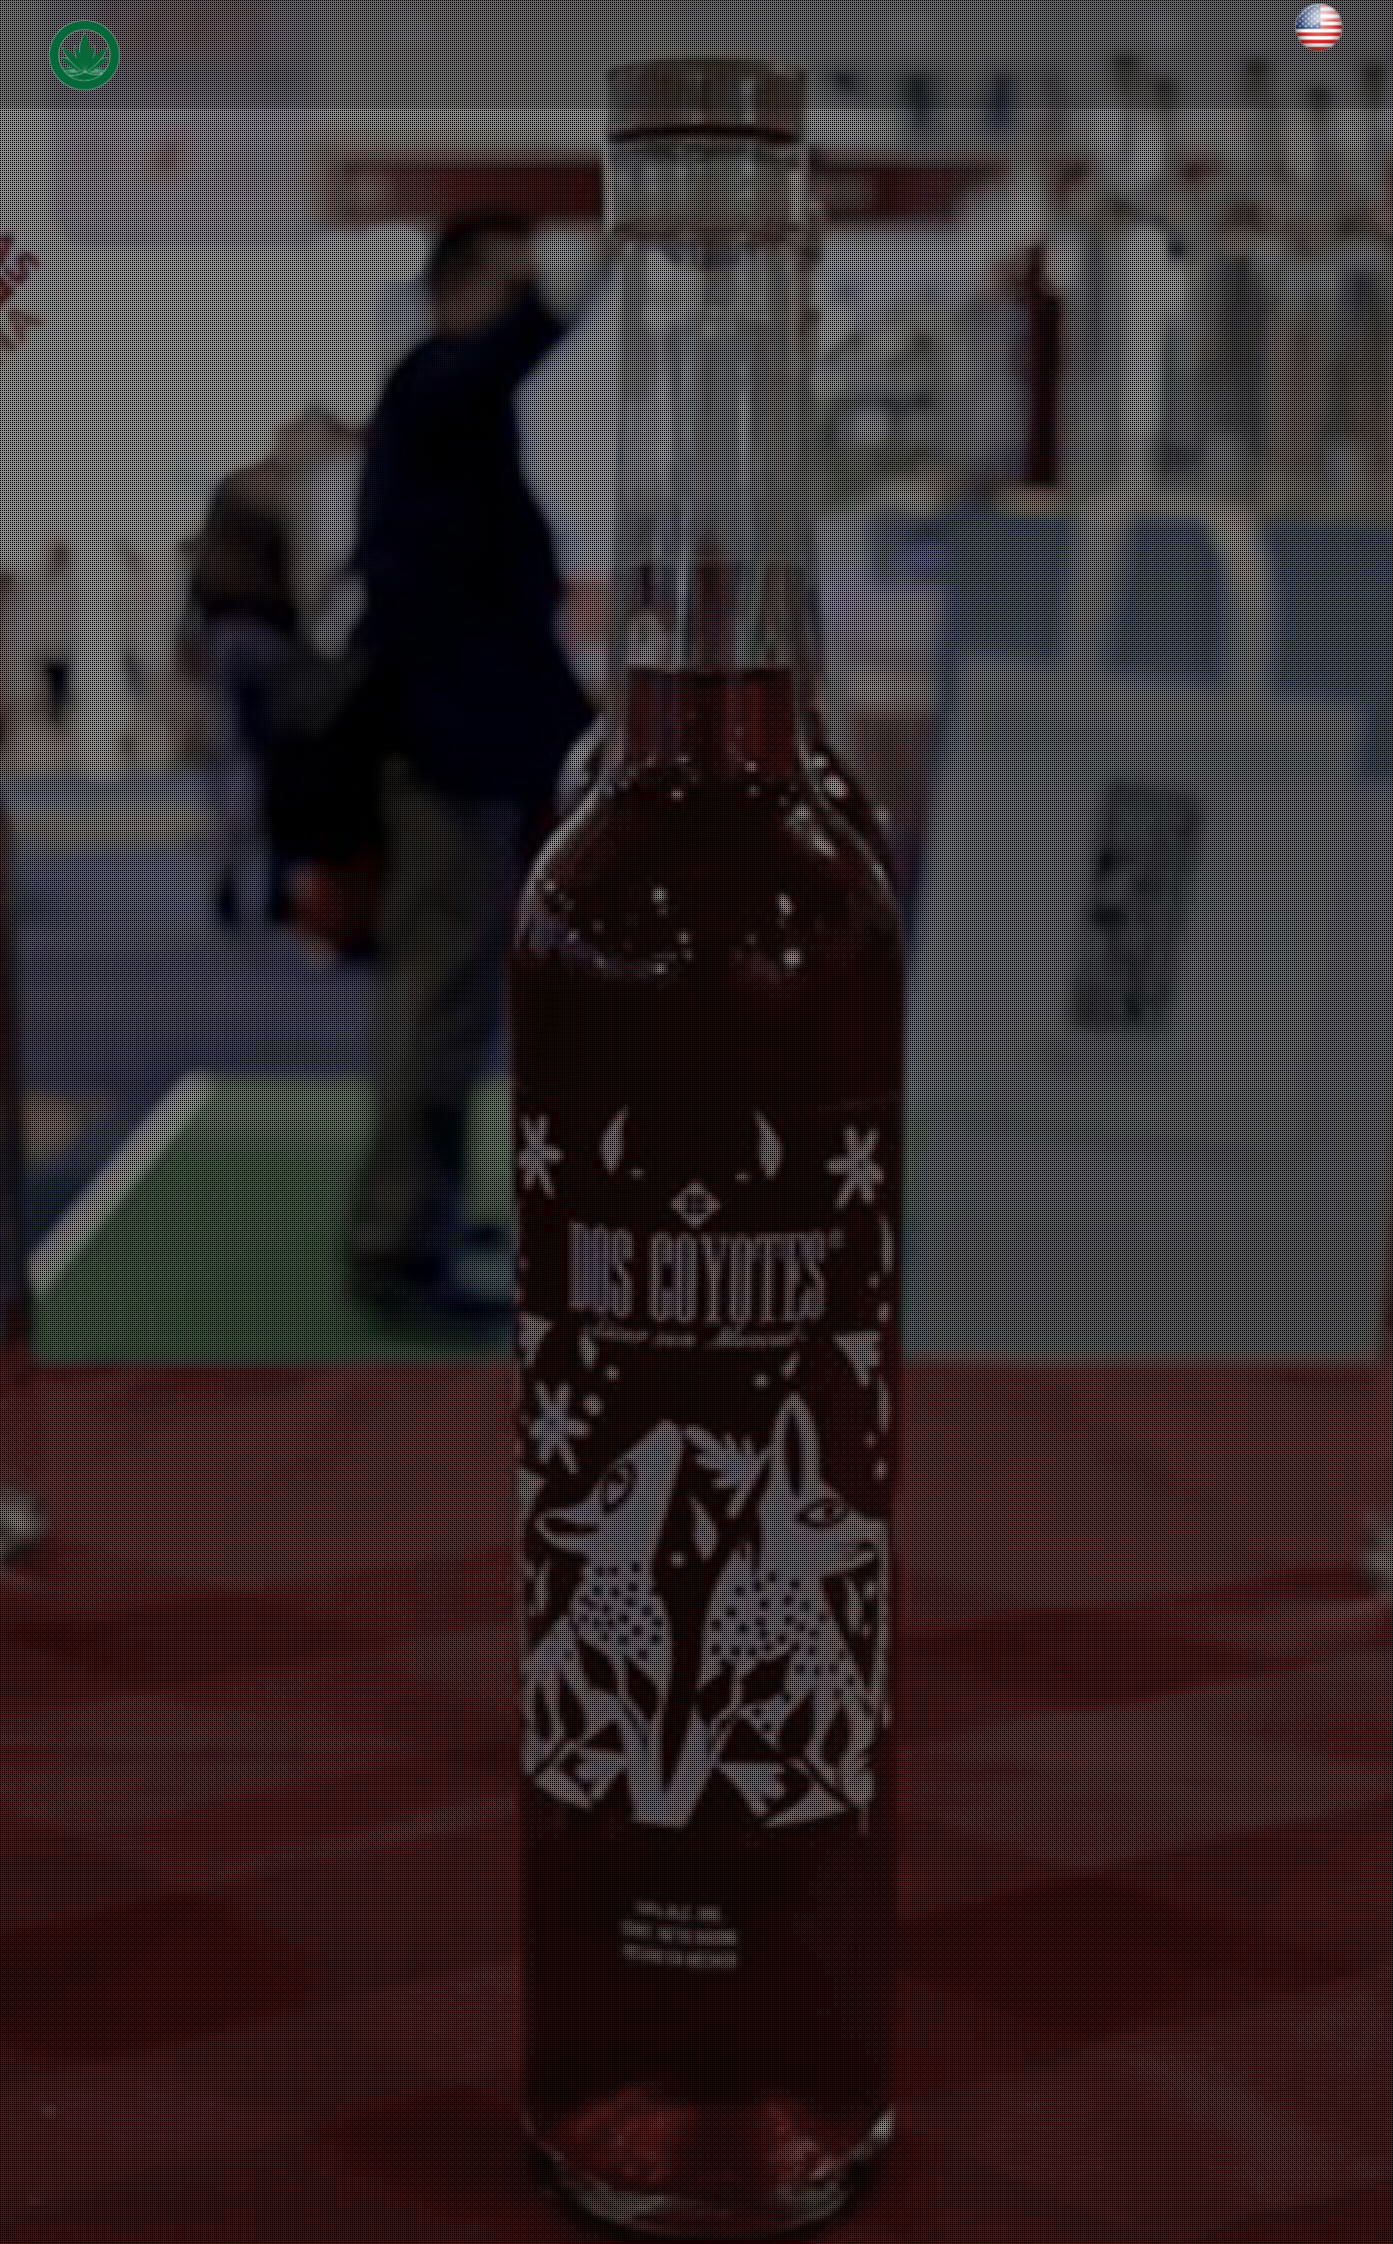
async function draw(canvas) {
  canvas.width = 1393
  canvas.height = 2244
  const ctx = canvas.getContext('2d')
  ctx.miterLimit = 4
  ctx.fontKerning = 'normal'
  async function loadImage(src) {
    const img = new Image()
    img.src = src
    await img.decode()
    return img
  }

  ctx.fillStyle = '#fff'
  ctx.fillRect(0, 0, 1393, 2244)
  ctx.drawImage(await loadImage('image0.png'), 0, 0, 1393, 2244)
  ctx.drawImage(await loadImage('image1.png'), 0, 0, 1393, 2244)
  ctx.fillStyle = '#13141640'
  ctx.fillRect(0, 0, 1393, 109)
  ctx.drawImage(await loadImage('image2.png'), 48, 20, 73, 71)
  ctx.drawImage(await loadImage('image3.png'), 1294, 3, 49, 49)
}

draw(document.querySelector('canvas'))
